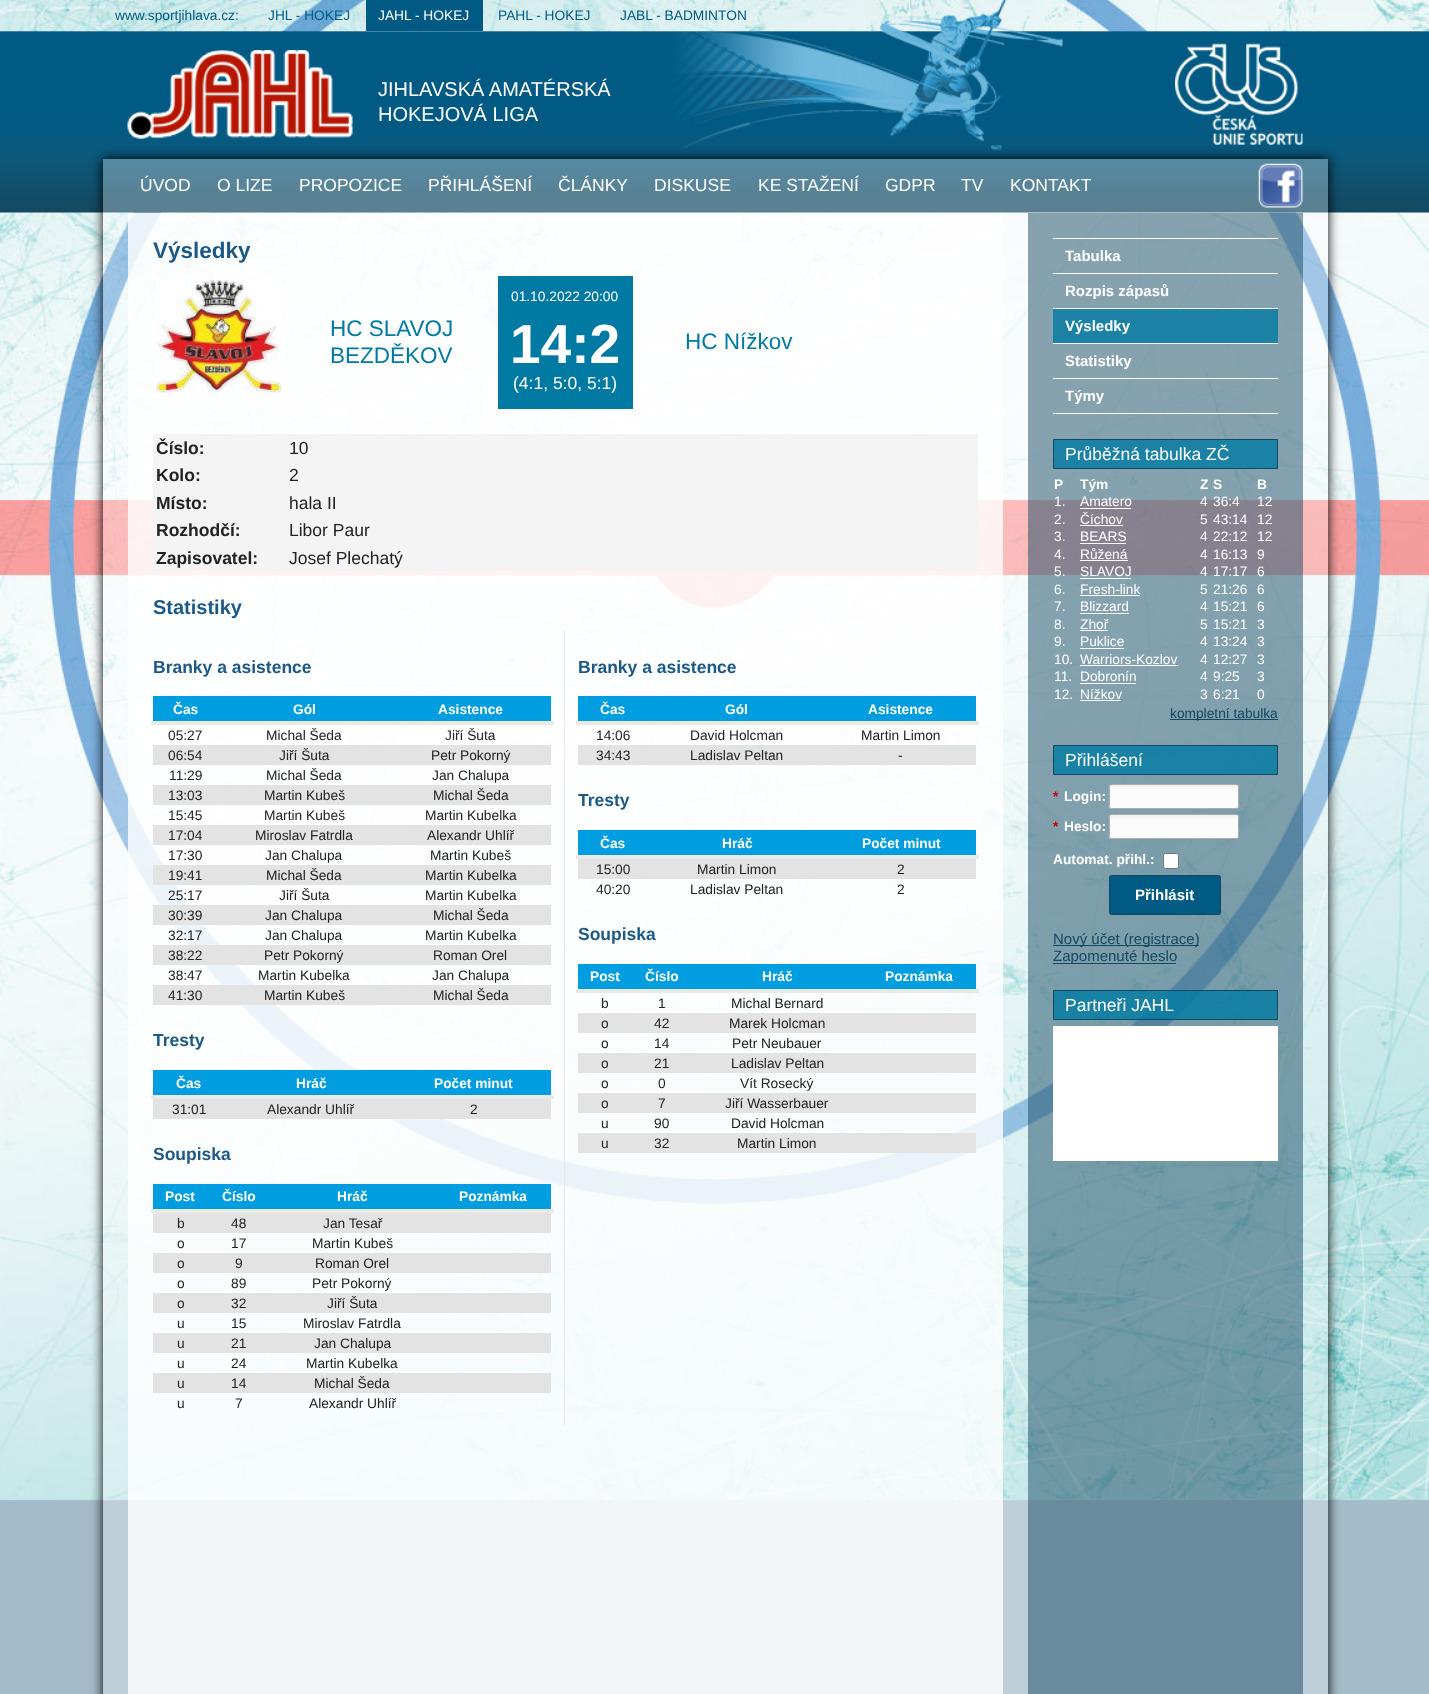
async function draw(canvas) {
  canvas.width = 1429
  canvas.height = 1694
  const ctx = canvas.getContext('2d')
  ctx.miterLimit = 4
  ctx.fontKerning = 'normal'
  async function loadImage(src) {
    const img = new Image()
    img.src = src
    await img.decode()
    return img
  }

  ctx.fillStyle = '#a4bbc9'
  ctx.fillRect(0, 0, 1429, 1694)
  ctx.drawImage(await loadImage('image0.png'), 0, 0, 1429, 1501)
  ctx.drawImage(await loadImage('image1.png'), 0, 31, 1429, 182)
  ctx.drawImage(await loadImage('image2.png'), 672, 0, 391, 151)
  ctx.font = '13.75px Liberation Sans'
  ctx.fillStyle = '#005a84'
  ctx.fillText('www.sportjihlava.cz:', 115, 20)
  ctx.fillText('JHL - HOKEJ', 268, 20)
  ctx.fillRect(366, 0, 117, 31)
  ctx.fillStyle = '#fff'
  ctx.fillText('JAHL - HOKEJ', 378, 20)
  ctx.fillStyle = '#005a84'
  ctx.fillText('PAHL - HOKEJ', 498, 20)
  ctx.fillText('JABL - BADMINTON', 620, 20)
  ctx.drawImage(await loadImage('image3.png'), 127, 50, 226, 89)
  ctx.font = '20px Liberation Sans'
  ctx.fillStyle = '#fff'
  ctx.fillText('JIHLAVSKÁ AMATÉRSKÁ', 378, 96)
  ctx.fillText('HOKEJOVÁ LIGA', 378, 121)
  ctx.drawImage(await loadImage('image4.png'), 1175, 43, 128, 102)
  ctx.save()
  ctx.beginPath()
  ctx.moveTo(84, 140)
  ctx.lineTo(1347, 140)
  ctx.lineTo(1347, 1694)
  ctx.lineTo(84, 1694)
  ctx.closePath()
  ctx.moveTo(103, 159)
  ctx.lineTo(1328, 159)
  ctx.lineTo(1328, 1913)
  ctx.lineTo(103, 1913)
  ctx.closePath()
  ctx.clip('evenodd')
  ctx.fillStyle = '#000'
  ctx.filter = 'blur(6px)'
  ctx.beginPath()
  ctx.rect(103, 159, 1225, 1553)
  ctx.fill()
  ctx.filter = 'none'
  ctx.restore()
  ctx.fillStyle = '#ffffff4d'
  ctx.fillRect(103, 159, 1225, 1535)
  ctx.font = '17.5px Liberation Sans'
  ctx.fillStyle = '#fff'
  ctx.fillText('ÚVOD', 140, 191)
  ctx.fillText('O LIZE', 217, 191)
  ctx.fillText('PROPOZICE', 299, 191)
  ctx.fillText('PŘIHLÁŠENÍ', 428, 191)
  ctx.fillText('ČLÁNKY', 558, 191)
  ctx.fillText('DISKUSE', 654, 191)
  ctx.fillText('KE STAŽENÍ', 758, 191)
  ctx.fillText('GDPR', 885, 191)
  ctx.fillText('TV', 961, 191)
  ctx.fillText('KONTAKT', 1010, 191)
  ctx.drawImage(await loadImage('image5.png'), 1258, 163, 45, 45)
  ctx.fillStyle = '#ffffffcc'
  ctx.fillRect(128, 213, 875, 1481)
  ctx.font = 'bold 22.5px Liberation Sans'
  ctx.fillStyle = '#1d5987'
  ctx.fillText('Výsledky', 153, 258)
  ctx.fillStyle = '#fff'
  ctx.fillRect(156, 280, 125, 113)
  ctx.drawImage(await loadImage('image6.png'), 156, 280, 126, 113)
  ctx.fillRect(859, 280, 29, 18)
  ctx.font = '22.5px Liberation Sans'
  ctx.fillStyle = '#007aa3'
  ctx.fillText('HC SLAVOJ', 330, 336)
  ctx.fillText('BEZDĚKOV', 330, 363)
  ctx.fillRect(498, 276, 135, 133)
  ctx.font = '13.75px Liberation Sans'
  ctx.fillStyle = '#fff'
  ctx.fillText('01.10.2022 20:00', 511, 301)
  ctx.font = 'bold 55px Liberation Sans'
  ctx.fillText('14:2', 510, 363)
  ctx.font = '17.5px Liberation Sans'
  ctx.fillText('(4:1, 5:0, 5:1)', 513, 389)
  ctx.font = '22.5px Liberation Sans'
  ctx.fillStyle = '#007aa3'
  ctx.fillText('HC Nížkov', 685, 349)
  ctx.fillStyle = '#f4f4f4'
  ctx.fillRect(153, 434, 825, 137)
  ctx.font = 'bold 17.5px Liberation Sans'
  ctx.fillStyle = '#222'
  ctx.fillText('Číslo:', 156, 454)
  ctx.font = '17.5px Liberation Sans'
  ctx.fillText('10', 289, 454)
  ctx.font = 'bold 17.5px Liberation Sans'
  ctx.fillText('Kolo:', 156, 481)
  ctx.font = '17.5px Liberation Sans'
  ctx.fillText('2', 289, 481)
  ctx.font = 'bold 17.5px Liberation Sans'
  ctx.fillText('Místo:', 156, 509)
  ctx.font = '17.5px Liberation Sans'
  ctx.fillText('hala II', 289, 509)
  ctx.font = 'bold 17.5px Liberation Sans'
  ctx.fillText('Rozhodčí:', 156, 536)
  ctx.font = '17.5px Liberation Sans'
  ctx.fillText('Libor Paur', 289, 536)
  ctx.font = 'bold 17.5px Liberation Sans'
  ctx.fillText('Zapisovatel:', 156, 564)
  ctx.font = '17.5px Liberation Sans'
  ctx.fillText('Josef Plechatý', 289, 564)
  ctx.font = 'bold 20px Liberation Sans'
  ctx.fillStyle = '#1d5987'
  ctx.fillText('Statistiky', 153, 614)
  ctx.fillStyle = '#e9eae5'
  ctx.fillRect(564, 631, 1, 794)
  ctx.font = 'bold 17.5px Liberation Sans'
  ctx.fillStyle = '#1d5987'
  ctx.fillText('Branky a asistence', 153, 673)
  ctx.fillStyle = '#009ee0'
  ctx.fillRect(153, 696, 398, 25)
  ctx.font = 'bold 13.75px Liberation Sans'
  ctx.fillStyle = '#fff'
  ctx.fillText('Čas', 173, 714)
  ctx.fillText('Gól', 293, 714)
  ctx.fillStyle = '#e9eae5'
  ctx.fillRect(151, 721, 403, 4)
  ctx.fillStyle = '#fff'
  ctx.fillText('Asistence', 438, 714)
  ctx.font = '13.75px Liberation Sans'
  ctx.fillStyle = '#222'
  ctx.fillText('05:27', 168, 740)
  ctx.fillText('Michal Šeda', 266, 740)
  ctx.fillText('Jiří Šuta', 445, 740)
  ctx.fillStyle = '#e3e3e3'
  ctx.fillRect(153, 745, 398, 20)
  ctx.fillStyle = '#222'
  ctx.fillText('06:54', 168, 760)
  ctx.fillText('Jiří Šuta', 279, 760)
  ctx.fillText('Petr Pokorný', 431, 760)
  ctx.fillText('11:29', 169, 780)
  ctx.fillText('Michal Šeda', 266, 780)
  ctx.fillText('Jan Chalupa', 432, 780)
  ctx.fillStyle = '#e3e3e3'
  ctx.fillRect(153, 785, 398, 20)
  ctx.fillStyle = '#222'
  ctx.fillText('13:03', 168, 800)
  ctx.fillText('Martin Kubeš', 264, 800)
  ctx.fillText('Michal Šeda', 433, 800)
  ctx.fillText('15:45', 168, 820)
  ctx.fillText('Martin Kubeš', 264, 820)
  ctx.fillText('Martin Kubelka', 425, 820)
  ctx.fillStyle = '#e3e3e3'
  ctx.fillRect(153, 825, 398, 20)
  ctx.fillStyle = '#222'
  ctx.fillText('17:04', 168, 840)
  ctx.fillText('Miroslav Fatrdla', 255, 840)
  ctx.fillText('Alexandr Uhlíř', 427, 840)
  ctx.fillText('17:30', 168, 860)
  ctx.fillText('Jan Chalupa', 265, 860)
  ctx.fillText('Martin Kubeš', 430, 860)
  ctx.fillStyle = '#e3e3e3'
  ctx.fillRect(153, 865, 398, 20)
  ctx.fillStyle = '#222'
  ctx.fillText('19:41', 168, 880)
  ctx.fillText('Michal Šeda', 266, 880)
  ctx.fillText('Martin Kubelka', 425, 880)
  ctx.fillText('25:17', 168, 900)
  ctx.fillText('Jiří Šuta', 279, 900)
  ctx.fillText('Martin Kubelka', 425, 900)
  ctx.fillStyle = '#e3e3e3'
  ctx.fillRect(153, 905, 398, 20)
  ctx.fillStyle = '#222'
  ctx.fillText('30:39', 168, 920)
  ctx.fillText('Jan Chalupa', 265, 920)
  ctx.fillText('Michal Šeda', 433, 920)
  ctx.fillText('32:17', 168, 940)
  ctx.fillText('Jan Chalupa', 265, 940)
  ctx.fillText('Martin Kubelka', 425, 940)
  ctx.fillStyle = '#e3e3e3'
  ctx.fillRect(153, 945, 398, 20)
  ctx.fillStyle = '#222'
  ctx.fillText('38:22', 168, 960)
  ctx.fillText('Petr Pokorný', 264, 960)
  ctx.fillText('Roman Orel', 433, 960)
  ctx.fillText('38:47', 168, 980)
  ctx.fillText('Martin Kubelka', 258, 980)
  ctx.fillText('Jan Chalupa', 432, 980)
  ctx.fillStyle = '#e3e3e3'
  ctx.fillRect(153, 985, 398, 20)
  ctx.fillStyle = '#222'
  ctx.fillText('41:30', 168, 1000)
  ctx.fillText('Martin Kubeš', 264, 1000)
  ctx.fillText('Michal Šeda', 433, 1000)
  ctx.font = 'bold 17.5px Liberation Sans'
  ctx.fillStyle = '#1d5987'
  ctx.fillText('Tresty', 153, 1046)
  ctx.fillStyle = '#009ee0'
  ctx.fillRect(153, 1070, 398, 25)
  ctx.font = 'bold 13.75px Liberation Sans'
  ctx.fillStyle = '#fff'
  ctx.fillText('Čas', 176, 1088)
  ctx.fillText('Hráč', 296, 1088)
  ctx.fillStyle = '#e9eae5'
  ctx.fillRect(151, 1095, 403, 4)
  ctx.fillStyle = '#fff'
  ctx.fillText('Počet minut', 434, 1088)
  ctx.fillStyle = '#e3e3e3'
  ctx.fillRect(153, 1099, 398, 20)
  ctx.font = '13.75px Liberation Sans'
  ctx.fillStyle = '#222'
  ctx.fillText('31:01', 172, 1114)
  ctx.fillText('Alexandr Uhlíř', 267, 1114)
  ctx.fillText('2', 470, 1114)
  ctx.font = 'bold 17.5px Liberation Sans'
  ctx.fillStyle = '#1d5987'
  ctx.fillText('Soupiska', 153, 1160)
  ctx.fillStyle = '#009ee0'
  ctx.fillRect(153, 1184, 398, 25)
  ctx.font = 'bold 13.75px Liberation Sans'
  ctx.fillStyle = '#fff'
  ctx.fillText('Post', 165, 1201)
  ctx.fillText('Číslo', 222, 1201)
  ctx.fillText('Hráč', 337, 1201)
  ctx.fillStyle = '#e9eae5'
  ctx.fillRect(151, 1209, 403, 4)
  ctx.fillStyle = '#fff'
  ctx.fillText('Poznámka', 459, 1201)
  ctx.fillStyle = '#e3e3e3'
  ctx.fillRect(153, 1213, 398, 20)
  ctx.font = '13.75px Liberation Sans'
  ctx.fillStyle = '#222'
  ctx.fillText('b', 177, 1228)
  ctx.fillText('48', 231, 1228)
  ctx.fillText('Jan Tesař', 323, 1228)
  ctx.fillText('o', 177, 1248)
  ctx.fillText('17', 231, 1248)
  ctx.fillText('Martin Kubeš', 312, 1248)
  ctx.fillStyle = '#e3e3e3'
  ctx.fillRect(153, 1253, 398, 20)
  ctx.fillStyle = '#222'
  ctx.fillText('o', 177, 1268)
  ctx.fillText('9', 235, 1268)
  ctx.fillText('Roman Orel', 315, 1268)
  ctx.fillText('o', 177, 1288)
  ctx.fillText('89', 231, 1288)
  ctx.fillText('Petr Pokorný', 312, 1288)
  ctx.fillStyle = '#e3e3e3'
  ctx.fillRect(153, 1293, 398, 20)
  ctx.fillStyle = '#222'
  ctx.fillText('o', 177, 1308)
  ctx.fillText('32', 231, 1308)
  ctx.fillText('Jiří Šuta', 327, 1308)
  ctx.fillText('u', 177, 1328)
  ctx.fillText('15', 231, 1328)
  ctx.fillText('Miroslav Fatrdla', 303, 1328)
  ctx.fillStyle = '#e3e3e3'
  ctx.fillRect(153, 1333, 398, 20)
  ctx.fillStyle = '#222'
  ctx.fillText('u', 177, 1348)
  ctx.fillText('21', 231, 1348)
  ctx.fillText('Jan Chalupa', 314, 1348)
  ctx.fillText('u', 177, 1368)
  ctx.fillText('24', 231, 1368)
  ctx.fillText('Martin Kubelka', 306, 1368)
  ctx.fillStyle = '#e3e3e3'
  ctx.fillRect(153, 1373, 398, 20)
  ctx.fillStyle = '#222'
  ctx.fillText('u', 177, 1388)
  ctx.fillText('14', 231, 1388)
  ctx.fillText('Michal Šeda', 314, 1388)
  ctx.fillText('u', 177, 1408)
  ctx.fillText('7', 235, 1408)
  ctx.fillText('Alexandr Uhlíř', 309, 1408)
  ctx.font = 'bold 17.5px Liberation Sans'
  ctx.fillStyle = '#1d5987'
  ctx.fillText('Branky a asistence', 578, 673)
  ctx.fillStyle = '#009ee0'
  ctx.fillRect(578, 696, 398, 25)
  ctx.font = 'bold 13.75px Liberation Sans'
  ctx.fillStyle = '#fff'
  ctx.fillText('Čas', 600, 714)
  ctx.fillText('Gól', 725, 714)
  ctx.fillStyle = '#e9eae5'
  ctx.fillRect(576, 721, 403, 4)
  ctx.fillStyle = '#fff'
  ctx.fillText('Asistence', 868, 714)
  ctx.font = '13.75px Liberation Sans'
  ctx.fillStyle = '#222'
  ctx.fillText('14:06', 596, 740)
  ctx.fillText('David Holcman', 690, 740)
  ctx.fillText('Martin Limon', 861, 740)
  ctx.fillStyle = '#e3e3e3'
  ctx.fillRect(578, 745, 398, 20)
  ctx.fillStyle = '#222'
  ctx.fillText('34:43', 596, 760)
  ctx.fillText('Ladislav Peltan', 690, 760)
  ctx.fillText('-', 898, 760)
  ctx.font = 'bold 17.5px Liberation Sans'
  ctx.fillStyle = '#1d5987'
  ctx.fillText('Tresty', 578, 806)
  ctx.fillStyle = '#009ee0'
  ctx.fillRect(578, 830, 398, 25)
  ctx.font = 'bold 13.75px Liberation Sans'
  ctx.fillStyle = '#fff'
  ctx.fillText('Čas', 600, 848)
  ctx.fillText('Hráč', 722, 848)
  ctx.fillStyle = '#e9eae5'
  ctx.fillRect(576, 855, 403, 4)
  ctx.fillStyle = '#fff'
  ctx.fillText('Počet minut', 862, 848)
  ctx.fillStyle = '#e3e3e3'
  ctx.fillRect(578, 859, 398, 20)
  ctx.font = '13.75px Liberation Sans'
  ctx.fillStyle = '#222'
  ctx.fillText('15:00', 596, 874)
  ctx.fillText('Martin Limon', 697, 874)
  ctx.fillText('2', 897, 874)
  ctx.fillText('40:20', 596, 894)
  ctx.fillText('Ladislav Peltan', 690, 894)
  ctx.fillText('2', 897, 894)
  ctx.font = 'bold 17.5px Liberation Sans'
  ctx.fillStyle = '#1d5987'
  ctx.fillText('Soupiska', 578, 940)
  ctx.fillStyle = '#009ee0'
  ctx.fillRect(578, 964, 398, 25)
  ctx.font = 'bold 13.75px Liberation Sans'
  ctx.fillStyle = '#fff'
  ctx.fillText('Post', 590, 981)
  ctx.fillText('Číslo', 645, 981)
  ctx.fillText('Hráč', 762, 981)
  ctx.fillStyle = '#e9eae5'
  ctx.fillRect(576, 989, 403, 4)
  ctx.fillStyle = '#fff'
  ctx.fillText('Poznámka', 885, 981)
  ctx.font = '13.75px Liberation Sans'
  ctx.fillStyle = '#222'
  ctx.fillText('b', 601, 1008)
  ctx.fillText('1', 658, 1008)
  ctx.fillText('Michal Bernard', 731, 1008)
  ctx.fillStyle = '#e3e3e3'
  ctx.fillRect(578, 1013, 398, 20)
  ctx.fillStyle = '#222'
  ctx.fillText('o', 601, 1028)
  ctx.fillText('42', 654, 1028)
  ctx.fillText('Marek Holcman', 729, 1028)
  ctx.fillText('o', 601, 1048)
  ctx.fillText('14', 654, 1048)
  ctx.fillText('Petr Neubauer', 732, 1048)
  ctx.fillStyle = '#e3e3e3'
  ctx.fillRect(578, 1053, 398, 20)
  ctx.fillStyle = '#222'
  ctx.fillText('o', 601, 1068)
  ctx.fillText('21', 654, 1068)
  ctx.fillText('Ladislav Peltan', 731, 1068)
  ctx.fillText('o', 601, 1088)
  ctx.fillText('0', 658, 1088)
  ctx.fillText('Vít Rosecký', 740, 1088)
  ctx.fillStyle = '#e3e3e3'
  ctx.fillRect(578, 1093, 398, 20)
  ctx.fillStyle = '#222'
  ctx.fillText('o', 601, 1108)
  ctx.fillText('7', 658, 1108)
  ctx.fillText('Jiří Wasserbauer', 725, 1108)
  ctx.fillText('u', 601, 1128)
  ctx.fillText('90', 654, 1128)
  ctx.fillText('David Holcman', 731, 1128)
  ctx.fillStyle = '#e3e3e3'
  ctx.fillRect(578, 1133, 398, 20)
  ctx.fillStyle = '#222'
  ctx.fillText('u', 601, 1148)
  ctx.fillText('32', 654, 1148)
  ctx.fillText('Martin Limon', 737, 1148)
  ctx.fillStyle = '#13486180'
  ctx.fillRect(1028, 213, 275, 1481)
  ctx.fillStyle = '#fff'
  ctx.fillRect(1053, 238, 225, 1)
  ctx.font = 'bold 15px Liberation Sans'
  ctx.fillText('Tabulka', 1065, 261)
  ctx.fillRect(1053, 273, 225, 1)
  ctx.fillText('Rozpis zápasů', 1065, 296)
  ctx.fillRect(1053, 308, 225, 1)
  ctx.fillStyle = '#007aa3cc'
  ctx.fillRect(1053, 309, 225, 34)
  ctx.fillStyle = '#fff'
  ctx.fillText('Výsledky', 1065, 331)
  ctx.fillRect(1053, 343, 225, 1)
  ctx.fillText('Statistiky', 1065, 366)
  ctx.fillRect(1053, 378, 225, 1)
  ctx.fillRect(1053, 413, 225, 1)
  ctx.fillText('Týmy', 1065, 401)
  ctx.fillStyle = '#007aa3cc'
  ctx.beginPath()
  ctx.rect(1053.5, 439.5, 224, 29)
  ctx.fill()
  ctx.strokeStyle = '#134861'
  ctx.stroke()
  ctx.font = '17.5px Liberation Sans'
  ctx.fillStyle = '#fff'
  ctx.fillText('Průběžná tabulka ZČ', 1065, 460)
  ctx.font = 'bold 13.75px Liberation Sans'
  ctx.fillText('P', 1054, 489)
  ctx.fillText('Tým', 1080, 489)
  ctx.fillText('Z', 1200, 489)
  ctx.fillText('S', 1213, 489)
  ctx.fillText('B', 1257, 489)
  ctx.font = '13.75px Liberation Sans'
  ctx.fillText('1.', 1054, 506)
  ctx.fillText('Amatero', 1080, 506)
  ctx.fillRect(1080, 508, 51, 1)
  ctx.fillText('4', 1200, 506)
  ctx.fillText('36:4', 1213, 506)
  ctx.fillText('12', 1257, 506)
  ctx.fillText('2.', 1054, 524)
  ctx.fillText('Číchov', 1080, 524)
  ctx.fillRect(1080, 525, 43, 1)
  ctx.fillText('5', 1200, 524)
  ctx.fillText('43:14', 1213, 524)
  ctx.fillText('12', 1257, 524)
  ctx.fillText('3.', 1054, 541)
  ctx.fillText('BEARS', 1080, 541)
  ctx.fillRect(1080, 543, 46, 1)
  ctx.fillText('4', 1200, 541)
  ctx.fillText('22:12', 1213, 541)
  ctx.fillText('12', 1257, 541)
  ctx.fillText('4.', 1054, 559)
  ctx.fillText('Růžená', 1080, 559)
  ctx.fillRect(1080, 560, 48, 1)
  ctx.fillText('4', 1200, 559)
  ctx.fillText('16:13', 1213, 559)
  ctx.fillText('9', 1257, 559)
  ctx.fillText('5.', 1054, 576)
  ctx.fillText('SLAVOJ', 1080, 576)
  ctx.fillRect(1080, 578, 51, 1)
  ctx.fillText('4', 1200, 576)
  ctx.fillText('17:17', 1213, 576)
  ctx.fillText('6', 1257, 576)
  ctx.fillText('6.', 1054, 594)
  ctx.fillText('Fresh-link', 1080, 594)
  ctx.fillRect(1080, 595, 60, 1)
  ctx.fillText('5', 1200, 594)
  ctx.fillText('21:26', 1213, 594)
  ctx.fillText('6', 1257, 594)
  ctx.fillText('7.', 1054, 611)
  ctx.fillText('Blizzard', 1080, 611)
  ctx.fillRect(1080, 613, 49, 1)
  ctx.fillText('4', 1200, 611)
  ctx.fillText('15:21', 1213, 611)
  ctx.fillText('6', 1257, 611)
  ctx.fillText('8.', 1054, 629)
  ctx.fillText('Zhoř', 1080, 629)
  ctx.fillRect(1080, 630, 28, 1)
  ctx.fillText('5', 1200, 629)
  ctx.fillText('15:21', 1213, 629)
  ctx.fillText('3', 1257, 629)
  ctx.fillText('9.', 1054, 646)
  ctx.fillText('Puklice', 1080, 646)
  ctx.fillRect(1080, 648, 44, 1)
  ctx.fillText('4', 1200, 646)
  ctx.fillText('13:24', 1213, 646)
  ctx.fillText('3', 1257, 646)
  ctx.fillText('10.', 1054, 664)
  ctx.fillText('Warriors-Kozlov', 1080, 664)
  ctx.fillRect(1080, 665, 98, 1)
  ctx.fillText('4', 1200, 664)
  ctx.fillText('12:27', 1213, 664)
  ctx.fillText('3', 1257, 664)
  ctx.fillText('11.', 1054, 681)
  ctx.fillText('Dobronín', 1080, 681)
  ctx.fillRect(1080, 683, 56, 1)
  ctx.fillText('4', 1200, 681)
  ctx.fillText('9:25', 1213, 681)
  ctx.fillText('3', 1257, 681)
  ctx.fillText('12.', 1054, 699)
  ctx.fillText('Nížkov', 1080, 699)
  ctx.fillRect(1080, 700, 41, 1)
  ctx.fillText('3', 1200, 699)
  ctx.fillText('6:21', 1213, 699)
  ctx.fillText('0', 1257, 699)
  ctx.fillStyle = '#134861'
  ctx.fillRect(1170, 719, 108, 1)
  ctx.fillText('kompletní tabulka', 1170, 718)
  ctx.fillStyle = '#007aa3cc'
  ctx.beginPath()
  ctx.rect(1053.5, 745.5, 224, 29)
  ctx.fill()
  ctx.stroke()
  ctx.font = '17.5px Liberation Sans'
  ctx.fillStyle = '#fff'
  ctx.fillText('Přihlášení', 1065, 766)
  ctx.font = 'bold 13.75px Liberation Sans'
  ctx.fillStyle = '#cd0000'
  ctx.fillText('*', 1053, 801)
  ctx.fillStyle = '#fff'
  ctx.fillText('Login:', 1064, 801)
  ctx.drawImage(await loadImage('image7.png'), 1108, 785, 131, 24)
  ctx.beginPath()
  ctx.roundRect(1109.5, 784.5, 129, 24, 2)
  ctx.strokeStyle = '#abadb3'
  ctx.stroke()
  ctx.fillStyle = '#cd0000'
  ctx.fillText('*', 1053, 831)
  ctx.fillStyle = '#fff'
  ctx.fillText('Heslo:', 1064, 831)
  ctx.drawImage(await loadImage('image8.png'), 1108, 815, 131, 24)
  ctx.beginPath()
  ctx.roundRect(1109.5, 814.5, 129, 24, 2)
  ctx.stroke()
  ctx.fillText('Automat. přihl.:', 1053, 864)
  ctx.beginPath()
  ctx.roundRect(1163.5, 853.5, 15, 15, 2)
  ctx.fill()
  ctx.strokeStyle = '#767676'
  ctx.stroke()
  ctx.fillStyle = '#005a84'
  ctx.beginPath()
  ctx.roundRect(1109.5, 875.5, 111, 39, 2)
  ctx.fill()
  ctx.strokeStyle = '#134861'
  ctx.stroke()
  ctx.font = 'bold 15px Liberation Sans'
  ctx.fillStyle = '#fff'
  ctx.fillText('Přihlásit', 1135, 900)
  ctx.fillStyle = '#134861'
  ctx.fillRect(1053, 945, 146, 1)
  ctx.font = '15px Liberation Sans'
  ctx.fillText('Nový účet (registrace)', 1053, 944)
  ctx.fillRect(1053, 963, 123, 1)
  ctx.fillText('Zapomenuté heslo', 1053, 961)
  ctx.fillStyle = '#007aa3cc'
  ctx.beginPath()
  ctx.rect(1053.5, 990.5, 224, 29)
  ctx.fill()
  ctx.stroke()
  ctx.font = '17.5px Liberation Sans'
  ctx.fillStyle = '#fff'
  ctx.fillText('Partneři JAHL', 1065, 1011)
  ctx.fillRect(1053, 1026, 225, 135)
}

draw(document.querySelector('canvas'))
